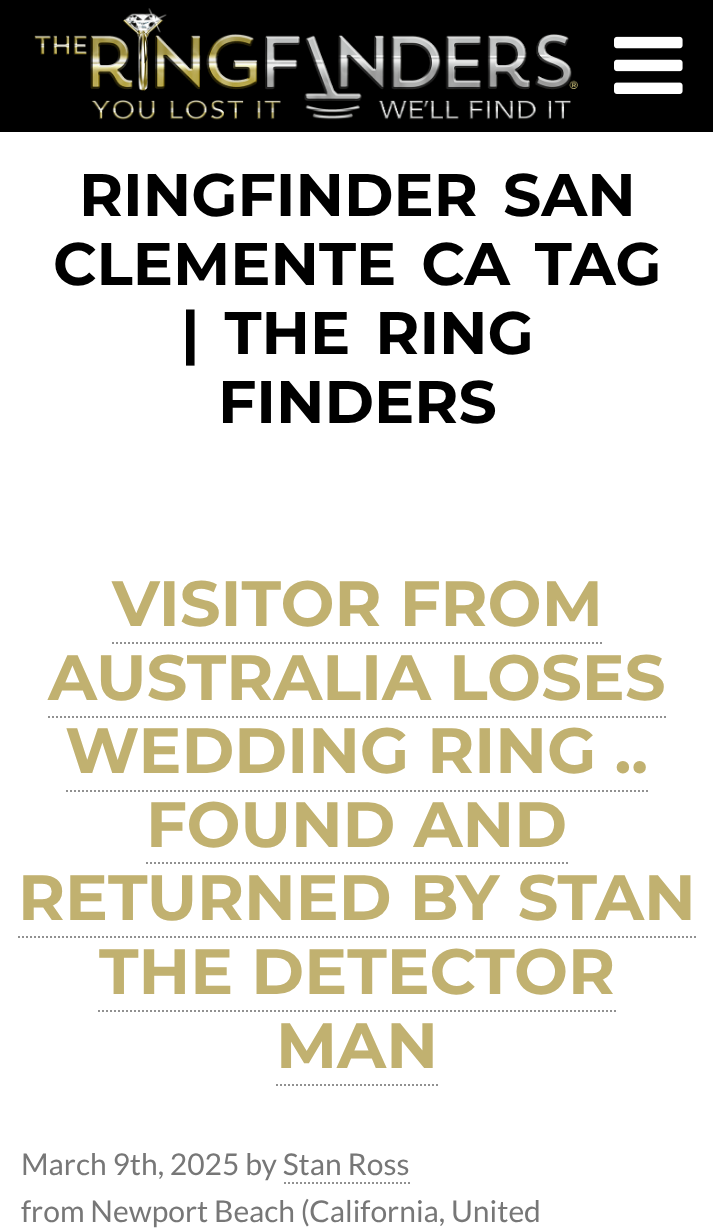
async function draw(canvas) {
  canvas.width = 713
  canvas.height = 1232
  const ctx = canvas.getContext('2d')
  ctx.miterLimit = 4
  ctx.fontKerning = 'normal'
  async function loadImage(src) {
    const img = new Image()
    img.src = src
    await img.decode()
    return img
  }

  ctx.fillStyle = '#fff'
  ctx.fillRect(0, 0, 713, 1232)
  ctx.fillStyle = '#000'
  ctx.fillRect(0, 0, 713, 132)
  ctx.drawImage(await loadImage('image0.png'), 34, 8, 544, 112)
  ctx.drawImage(await loadImage('image1.png'), 614, 36, 69, 58)
  ctx.wordSpacing = '8px'
  ctx.font = '100 60px Montserrat'
  ctx.fillText('RINGFINDER SAN', 79, 216)
  ctx.fillText('CLEMENTE CA TAG', 53, 285)
  ctx.fillText('| THE RING', 181, 354)
  ctx.wordSpacing = '0px'
  ctx.fillText('FINDERS', 218, 423)
  ctx.font = '100 64px Montserrat'
  ctx.fillStyle = '#c1b170'
  ctx.fillText('VISITOR FROM', 112, 626)
  ctx.fillText('AUSTRALIA LOSES', 48, 700)
  ctx.beginPath()
  ctx.moveTo(112, 643)
  ctx.lineTo(602, 643)
  ctx.strokeStyle = '#919191'
  ctx.lineWidth = 2
  ctx.setLineDash([2, 2])
  ctx.stroke()
  ctx.fillText('WEDDING RING ..', 65, 773)
  ctx.beginPath()
  ctx.moveTo(48, 717)
  ctx.lineTo(666, 717)
  ctx.stroke()
  ctx.fillText('FOUND AND', 146, 847)
  ctx.beginPath()
  ctx.moveTo(66, 791)
  ctx.lineTo(648, 791)
  ctx.stroke()
  ctx.fillText('RETURNED BY STAN', 18, 920)
  ctx.beginPath()
  ctx.moveTo(146, 863)
  ctx.lineTo(568, 863)
  ctx.stroke()
  ctx.fillText('THE DETECTOR', 99, 994)
  ctx.beginPath()
  ctx.moveTo(18, 937)
  ctx.lineTo(696, 937)
  ctx.stroke()
  ctx.fillText('MAN', 276, 1068)
  ctx.beginPath()
  ctx.moveTo(98, 1011)
  ctx.lineTo(616, 1011)
  ctx.stroke()
  ctx.beginPath()
  ctx.moveTo(276, 1085)
  ctx.lineTo(438, 1085)
  ctx.stroke()
  ctx.font = '30px Lato'
  ctx.fillStyle = '#777'
  ctx.fillText('March 9th, 2025 by Stan Ross', 21, 1175)
  ctx.beginPath()
  ctx.moveTo(284, 1183)
  ctx.lineTo(410, 1183)
  ctx.stroke()
  ctx.fillText('from Newport Beach (California, United', 21, 1222)
}

draw(document.querySelector('canvas'))
